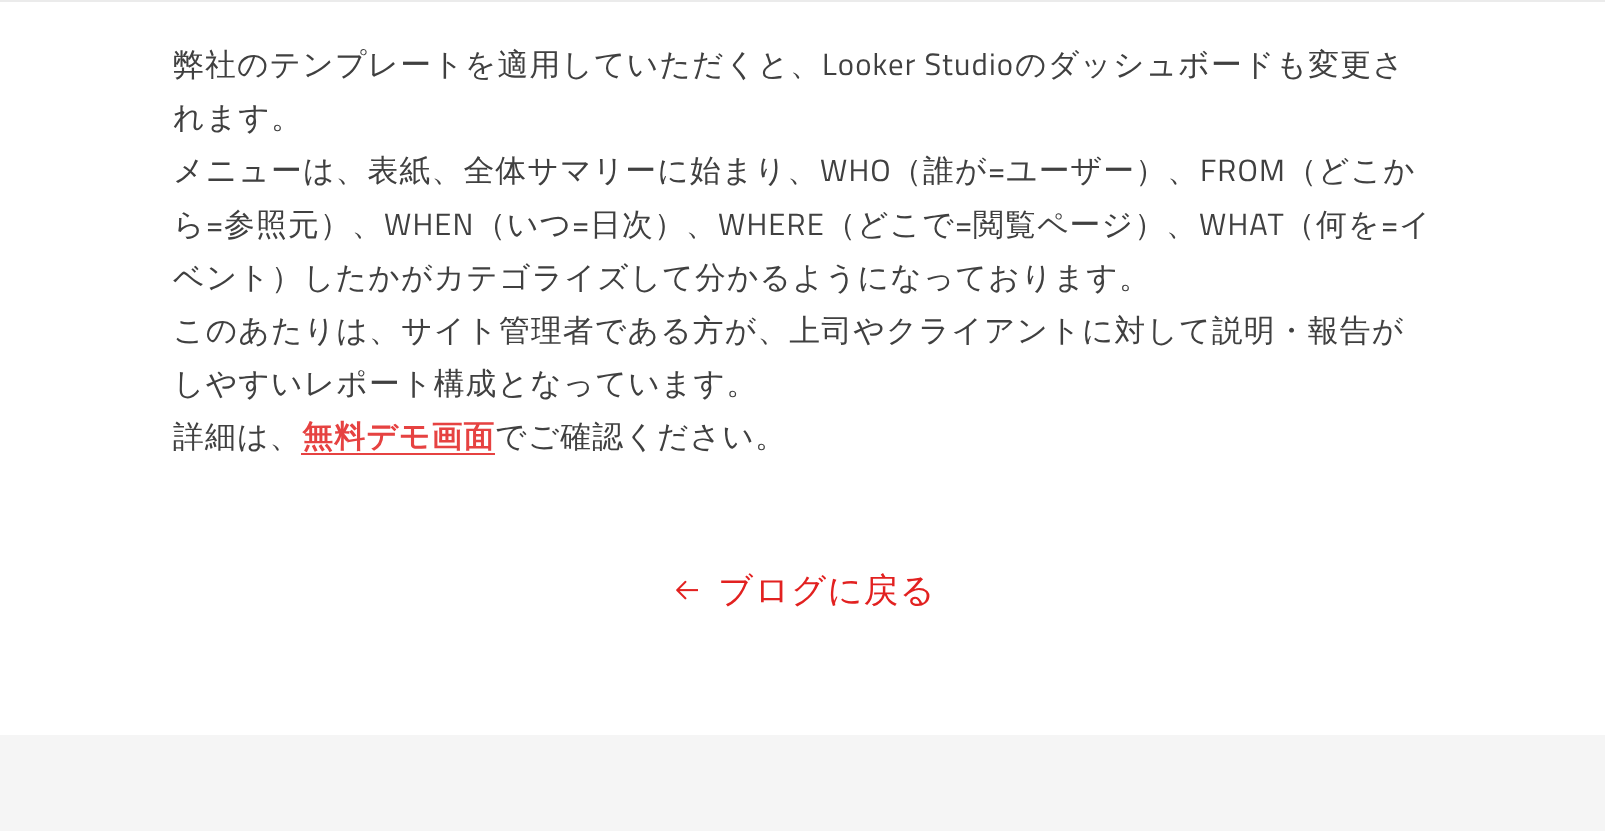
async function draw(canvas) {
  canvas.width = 1605
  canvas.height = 831
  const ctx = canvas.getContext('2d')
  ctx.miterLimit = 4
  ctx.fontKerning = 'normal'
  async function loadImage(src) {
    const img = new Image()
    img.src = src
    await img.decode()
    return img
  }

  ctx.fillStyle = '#fff'
  ctx.fillRect(0, 0, 1605, 831)
  ctx.fillStyle = '#ebebeb'
  ctx.fillRect(0, 0, 1605, 2)
  ctx.letterSpacing = '1.15px'
  ctx.font = '500 30.8px WenQuanYi Zen Hei'
  ctx.fillStyle = '#404040'
  ctx.fillText('弊社のテンプレートを適用していただくと、', 173, 75)
  ctx.font = '30.8px Titillium Web'
  ctx.fillText('Looker Studio', 822, 75)
  ctx.font = '500 30.8px WenQuanYi Zen Hei'
  ctx.fillText('のダッシュボードも変更さ', 1015, 75)
  ctx.fillText('れます。', 173, 128)
  ctx.fillText('メニューは、表紙、全体サマリーに始まり、', 173, 181)
  ctx.font = '30.8px Titillium Web'
  ctx.fillText('WHO', 820, 181)
  ctx.font = '500 30.8px WenQuanYi Zen Hei'
  ctx.fillText('（誰が', 891, 181)
  ctx.font = '30.8px Titillium Web'
  ctx.fillText('=', 988, 181)
  ctx.font = '500 30.8px WenQuanYi Zen Hei'
  ctx.fillText('ユーザー）、', 1006, 181)
  ctx.font = '30.8px Titillium Web'
  ctx.fillText('FROM', 1200, 181)
  ctx.font = '500 30.8px WenQuanYi Zen Hei'
  ctx.fillText('（どこか', 1286, 181)
  ctx.fillText('ら', 173, 235)
  ctx.font = '30.8px Titillium Web'
  ctx.fillText('=', 206, 235)
  ctx.font = '500 30.8px WenQuanYi Zen Hei'
  ctx.fillText('参照元）、', 224, 235)
  ctx.font = '30.8px Titillium Web'
  ctx.fillText('WHEN', 384, 235)
  ctx.font = '500 30.8px WenQuanYi Zen Hei'
  ctx.fillText('（いつ', 475, 235)
  ctx.font = '30.8px Titillium Web'
  ctx.fillText('=', 572, 235)
  ctx.font = '500 30.8px WenQuanYi Zen Hei'
  ctx.fillText('日次）、', 590, 235)
  ctx.font = '30.8px Titillium Web'
  ctx.fillText('WHERE', 718, 235)
  ctx.font = '500 30.8px WenQuanYi Zen Hei'
  ctx.fillText('（どこで', 825, 235)
  ctx.font = '30.8px Titillium Web'
  ctx.fillText('=', 955, 235)
  ctx.font = '500 30.8px WenQuanYi Zen Hei'
  ctx.fillText('閲覧ページ）、', 973, 235)
  ctx.font = '30.8px Titillium Web'
  ctx.fillText('WHAT', 1199, 235)
  ctx.font = '500 30.8px WenQuanYi Zen Hei'
  ctx.fillText('（何を', 1284, 235)
  ctx.font = '30.8px Titillium Web'
  ctx.fillText('=', 1381, 235)
  ctx.font = '500 30.8px WenQuanYi Zen Hei'
  ctx.fillText('イ', 1399, 235)
  ctx.fillText('ベント）したかがカテゴライズして分かるようになっております。', 173, 288)
  ctx.fillText('このあたりは、サイト管理者である方が、上司やクライアントに対して説明・報告が', 173, 341)
  ctx.fillText('しやすいレポート構成となっています。', 173, 394)
  ctx.fillText('詳細は、', 173, 447)
  ctx.font = 'bold 30.8px WenQuanYi Zen Hei'
  ctx.fillStyle = '#e64241'
  ctx.fillText('無料デモ画面', 302, 447)
  ctx.fillRect(301, 453, 194, 2)
  ctx.font = '500 30.8px WenQuanYi Zen Hei'
  ctx.fillStyle = '#404040'
  ctx.fillText('でご確認ください。', 495, 447)
  ctx.drawImage(await loadImage('image0.png'), 676, 580, 22, 20)
  ctx.font = '500 34.5px WenQuanYi Zen Hei'
  ctx.fillStyle = '#e22120'
  ctx.fillText('ブログに戻る', 718, 602)
  ctx.fillStyle = '#f5f5f5'
  ctx.fillRect(0, 735, 1605, 96)
}

draw(document.querySelector('canvas'))
